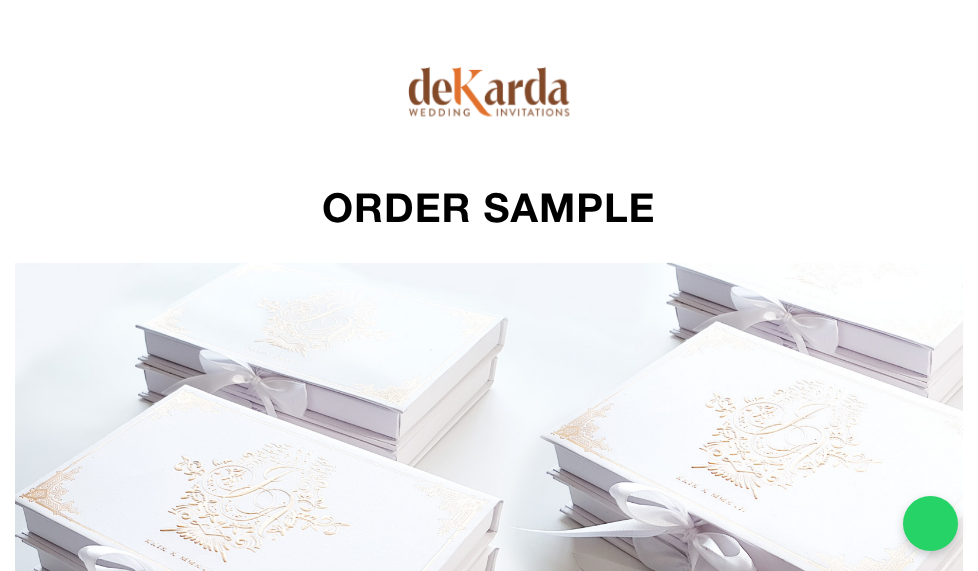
async function draw(canvas) {
  canvas.width = 978
  canvas.height = 571
  const ctx = canvas.getContext('2d')
  ctx.miterLimit = 4
  ctx.fontKerning = 'normal'
  async function loadImage(src) {
    const img = new Image()
    img.src = src
    await img.decode()
    return img
  }

  ctx.fillStyle = '#fff'
  ctx.fillRect(0, 0, 978, 571)
  ctx.drawImage(await loadImage('image0.png'), 408, 66, 162, 51)
  ctx.letterSpacing = '1px'
  ctx.font = 'bold 40px Helvetica Neue'
  ctx.fillStyle = '#000'
  ctx.fillText('ORDER SAMPLE', 322, 222)
  ctx.drawImage(await loadImage('image1.png'), 15, 262, 948, 309)
  ctx.fillStyle = '#00000033'
  ctx.filter = 'blur(5px)'
  ctx.beginPath()
  ctx.roundRect(903, 500, 55, 55, 27.5)
  ctx.fill()
  ctx.filter = 'none'
  ctx.fillStyle = '#25d366'
  ctx.beginPath()
  ctx.arc(930.5, 523.5, 27.5, 0, 2 * Math.PI)
  ctx.fill()
}

draw(document.querySelector('canvas'))
